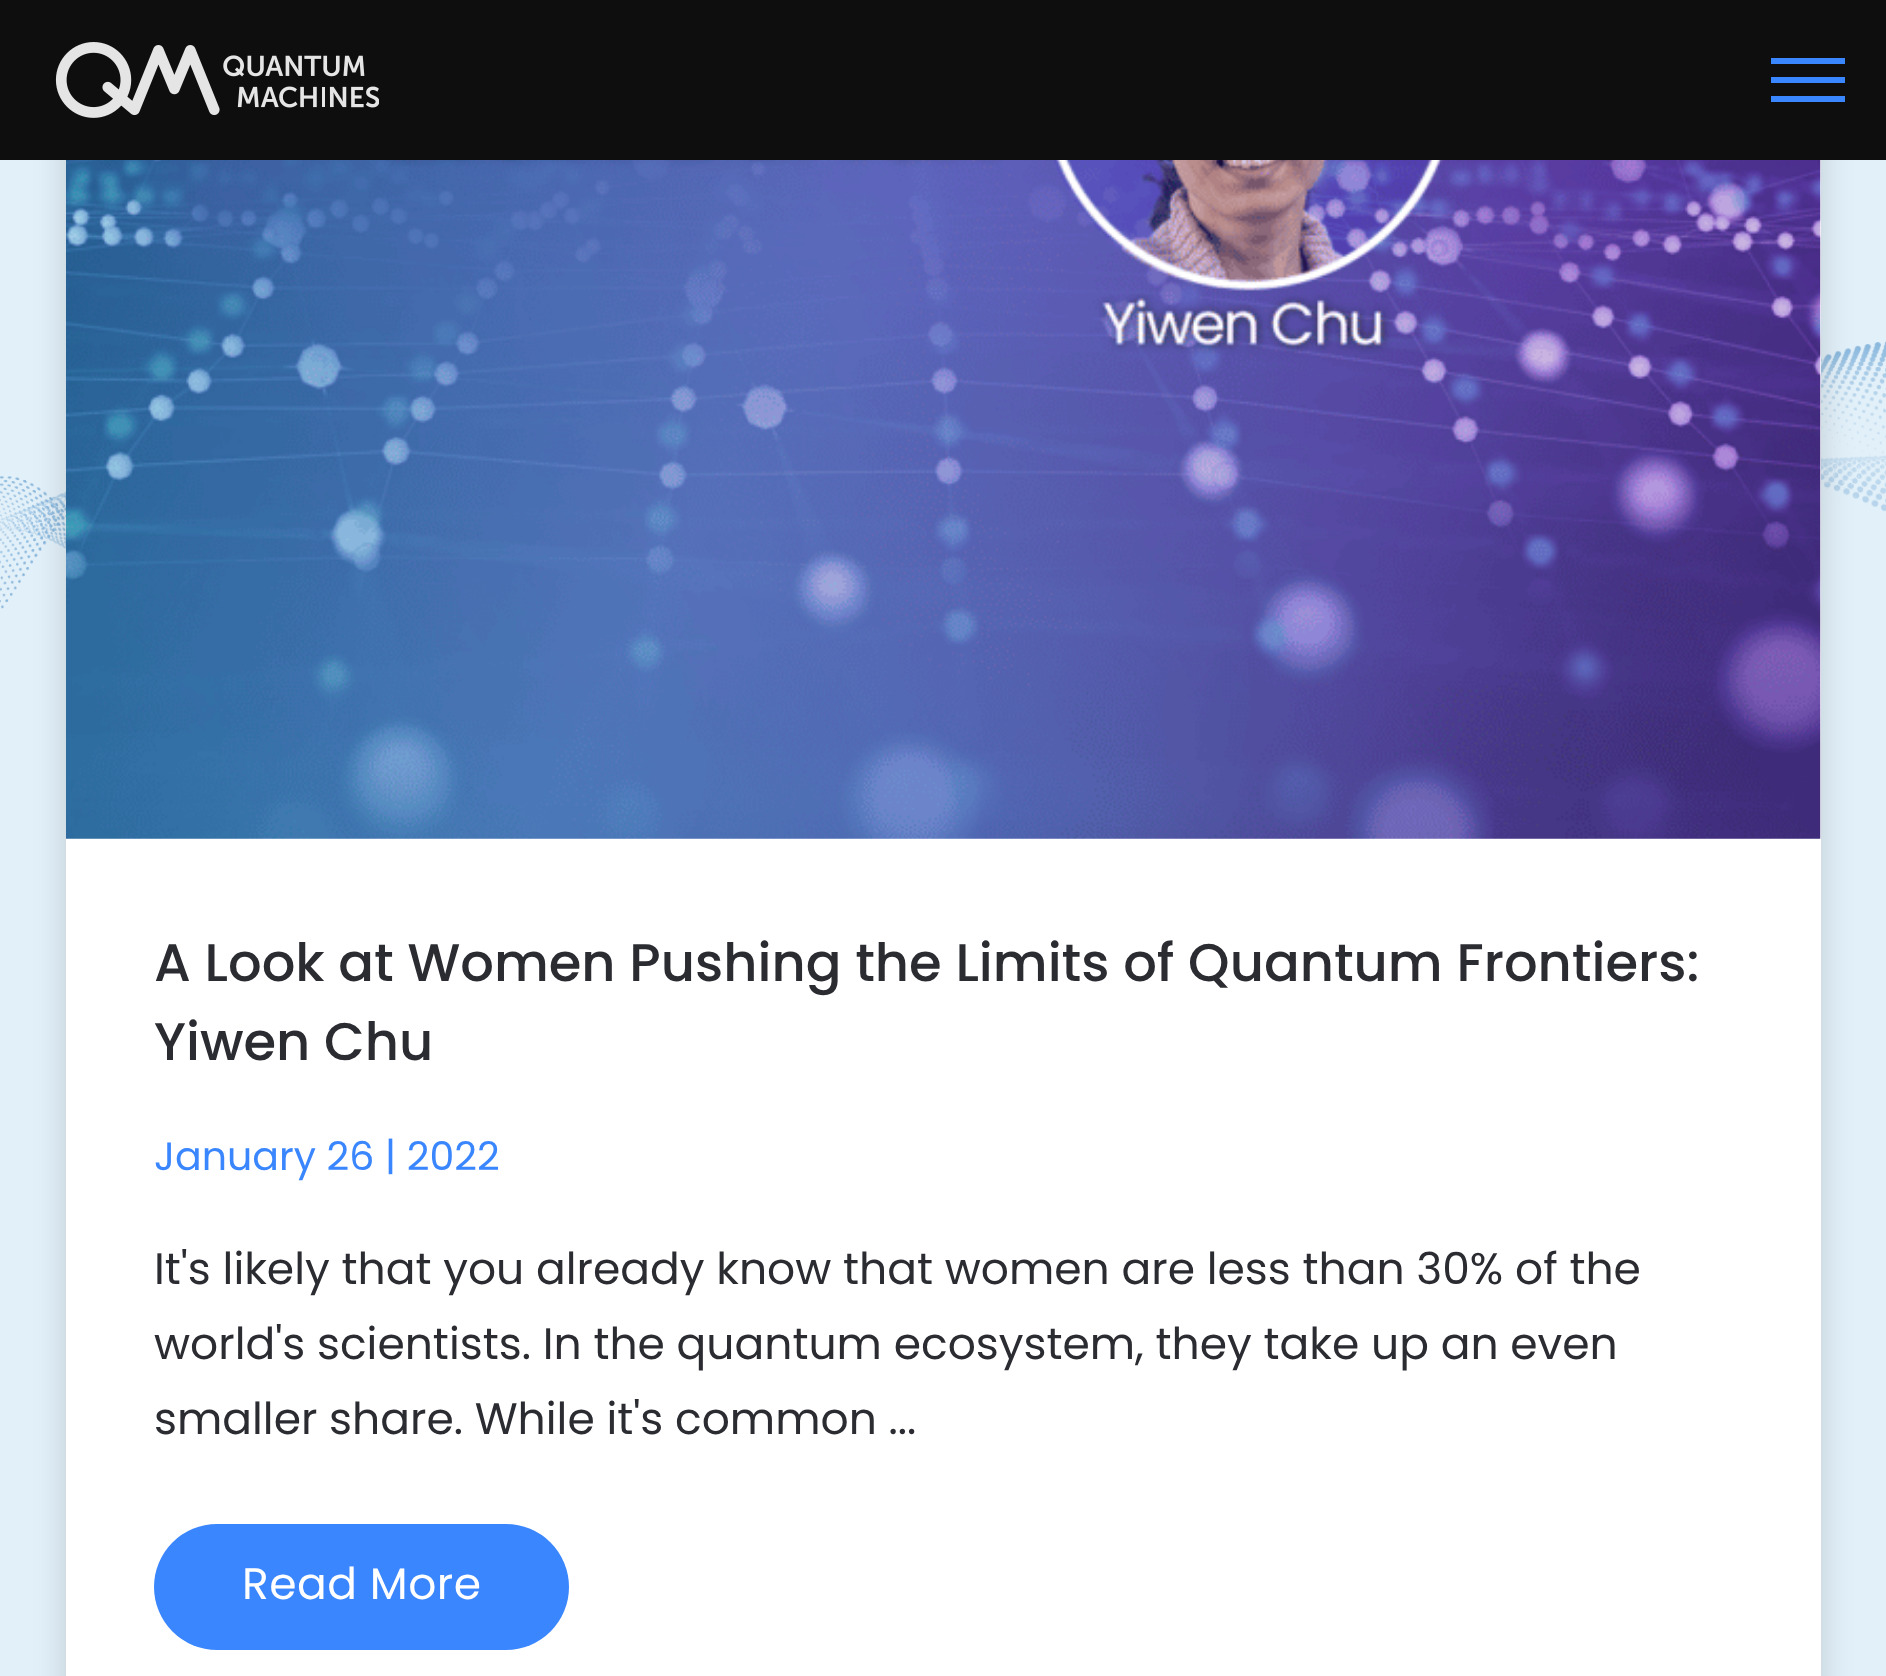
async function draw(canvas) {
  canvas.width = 1886
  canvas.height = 1676
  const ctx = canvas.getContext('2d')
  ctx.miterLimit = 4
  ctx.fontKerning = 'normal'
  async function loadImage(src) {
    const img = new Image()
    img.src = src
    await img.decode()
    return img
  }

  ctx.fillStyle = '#e2f0f9'
  ctx.fillRect(0, 0, 1886, 1676)
  ctx.drawImage(await loadImage('image1.png'), 0, 341, 1886, 268)
  ctx.fillStyle = '#00000026'
  ctx.filter = 'blur(16.5px)'
  ctx.beginPath()
  ctx.roundRect(66, -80, 1755, 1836, 30)
  ctx.fill()
  ctx.filter = 'none'
  ctx.fillStyle = '#0e0e0e'
  ctx.fillRect(0, 0, 1886, 160)
  ctx.drawImage(await loadImage('image0.png'), 55, 42, 324, 76)
  ctx.fillStyle = '#3a86ff'
  ctx.fillRect(1771, 58, 74, 6)
  ctx.fillRect(1771, 77, 74, 6)
  ctx.fillRect(1771, 96, 74, 6)
  ctx.fillStyle = '#fff'
  ctx.fillRect(66, 160, 1755, 1516)
  ctx.drawImage(await loadImage('image2.png'), 66, 160, 1755, 679)
  ctx.font = '500 52.8px Poppins'
  ctx.fillStyle = '#2b2c32'
  ctx.fillText('A Look at Women Pushing the Limits of Quantum Frontiers:', 154, 981)
  ctx.fillText('Yiwen Chu', 154, 1060)
  ctx.font = '39.5px Poppins'
  ctx.fillStyle = '#3a86ff'
  ctx.fillText('January 26 | 2022', 154, 1170)
  ctx.font = '44px Poppins'
  ctx.fillStyle = '#2b2c32'
  ctx.fillText('It\'s likely that you already know that women are less than 30% of the', 154, 1284)
  ctx.fillText('world\'s scientists. In the quantum ecosystem, they take up an even', 154, 1359)
  ctx.fillText('smaller share. While it\'s common ...', 154, 1434)
  ctx.fillStyle = '#3a86ff'
  ctx.beginPath()
  ctx.roundRect(154, 1524, 415, 126, 63)
  ctx.fill()
  ctx.letterSpacing = '0.5px'
  ctx.fillStyle = '#fff'
  ctx.fillText('Read More', 242, 1599)
}

draw(document.querySelector('canvas'))
